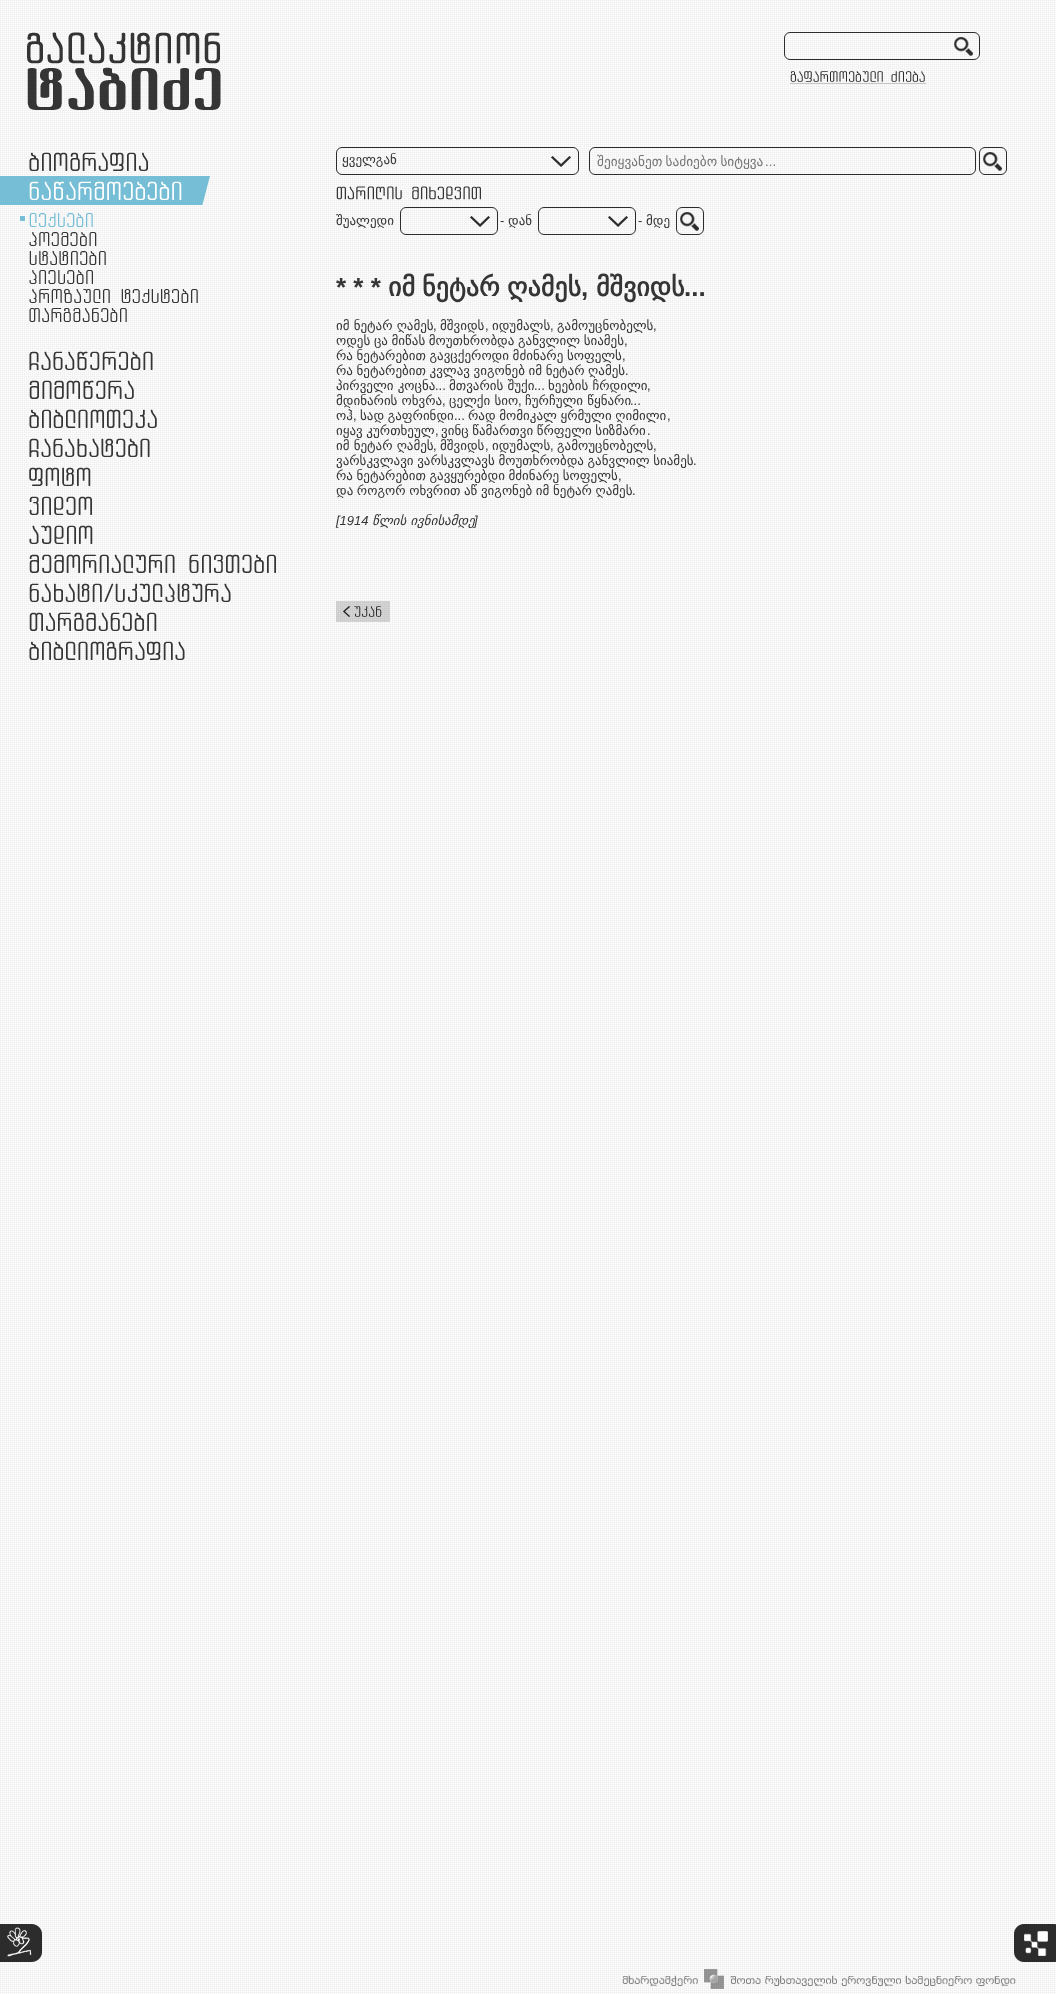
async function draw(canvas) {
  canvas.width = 1056
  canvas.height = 1994
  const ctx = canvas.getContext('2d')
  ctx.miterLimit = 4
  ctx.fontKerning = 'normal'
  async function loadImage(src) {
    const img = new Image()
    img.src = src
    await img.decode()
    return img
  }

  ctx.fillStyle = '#fff'
  ctx.fillRect(0, 0, 1056, 1994)
  ctx.drawImage(await loadImage('image0.png'), 0, 147, 1056, 1847)
  ctx.drawImage(await loadImage('image1.png'), 0, 0, 1056, 147)
  ctx.drawImage(await loadImage('image2.png'), 27, 32, 194, 78)
  ctx.beginPath()
  ctx.roundRect(784.5, 32.5, 195, 27, 5.5)
  ctx.strokeStyle = '#2c2c2c'
  ctx.stroke()
  ctx.drawImage(await loadImage('image3.png'), 954, 37, 19, 19)
  ctx.drawImage(await loadImage('image4.png'), 790, 71, 137, 13)
  ctx.drawImage(await loadImage('image5.png'), 29, 152, 119, 19)
  ctx.drawImage(await loadImage('image6.png'), 0, 176, 210, 29)
  ctx.drawImage(await loadImage('image7.png'), 29, 181, 153, 19)
  ctx.fillStyle = '#75bed6'
  ctx.fillRect(20, 216, 5, 5)
  ctx.drawImage(await loadImage('image8.png'), 29, 213, 64, 14)
  ctx.drawImage(await loadImage('image9.png'), 29, 232, 68, 14)
  ctx.drawImage(await loadImage('image10.png'), 29, 251, 77, 14)
  ctx.drawImage(await loadImage('image11.png'), 29, 270, 64, 14)
  ctx.drawImage(await loadImage('image12.png'), 29, 289, 169, 14)
  ctx.drawImage(await loadImage('image13.png'), 29, 308, 98, 14)
  ctx.drawImage(await loadImage('image14.png'), 29, 351, 124, 19)
  ctx.drawImage(await loadImage('image15.png'), 29, 380, 105, 19)
  ctx.drawImage(await loadImage('image16.png'), 29, 409, 128, 19)
  ctx.drawImage(await loadImage('image17.png'), 29, 438, 121, 19)
  ctx.drawImage(await loadImage('image18.png'), 29, 467, 62, 19)
  ctx.drawImage(await loadImage('image19.png'), 29, 496, 63, 19)
  ctx.drawImage(await loadImage('image20.png'), 29, 525, 64, 19)
  ctx.drawImage(await loadImage('image21.png'), 29, 554, 247, 19)
  ctx.drawImage(await loadImage('image22.png'), 29, 583, 202, 19)
  ctx.drawImage(await loadImage('image23.png'), 29, 612, 128, 19)
  ctx.drawImage(await loadImage('image24.png'), 29, 641, 156, 19)
  ctx.beginPath()
  ctx.roundRect(336.5, 147.5, 242, 27, 5.5)
  ctx.stroke()
  ctx.font = '13px DejaVu Sans'
  ctx.fillStyle = '#353535'
  ctx.fillText('ყველგან', 342, 164)
  ctx.drawImage(await loadImage('image25.png'), 551, 156, 20, 11)
  ctx.beginPath()
  ctx.roundRect(589.5, 147.5, 386, 27, 5.5)
  ctx.stroke()
  ctx.save()
  ctx.beginPath()
  ctx.rect(597, 154, 375, 15)
  ctx.clip()
  ctx.wordSpacing = '-1px'
  ctx.font = '13.3px DejaVu Sans'
  ctx.fillStyle = '#757575'
  ctx.fillText('შეიყვანეთ საძიებო სიტყვა', 597, 166)
  ctx.restore()
  ctx.font = '13.3px Liberation Sans'
  ctx.fillStyle = '#757575'
  ctx.fillText('...', 765, 166)
  ctx.drawImage(await loadImage('image26.png'), 983, 152, 19, 19)
  ctx.beginPath()
  ctx.roundRect(979.5, 147.5, 27, 27, 5.5)
  ctx.stroke()
  ctx.drawImage(await loadImage('image27.png'), 336, 186, 145, 14)
  ctx.font = '13px DejaVu Sans'
  ctx.fillStyle = '#353535'
  ctx.fillText('შუალედი', 336, 225)
  ctx.beginPath()
  ctx.roundRect(400.5, 207.5, 97, 27, 5.5)
  ctx.stroke()
  ctx.drawImage(await loadImage('image28.png'), 470, 216, 20, 11)
  ctx.font = '13px Liberation Sans'
  ctx.fillText('-', 500, 225)
  ctx.font = '13px DejaVu Sans'
  ctx.fillText('დან', 508, 225)
  ctx.beginPath()
  ctx.roundRect(538.5, 207.5, 97, 27, 5.5)
  ctx.stroke()
  ctx.drawImage(await loadImage('image28.png'), 608, 216, 20, 11)
  ctx.font = '13px Liberation Sans'
  ctx.fillText('-', 638, 225)
  ctx.font = '13px DejaVu Sans'
  ctx.fillText('მდე', 646, 225)
  ctx.drawImage(await loadImage('image29.png'), 680, 212, 19, 19)
  ctx.beginPath()
  ctx.roundRect(676.5, 207.5, 27, 27, 5.5)
  ctx.stroke()
  ctx.font = 'bold 26px Liberation Sans'
  ctx.fillText('* * *', 336, 296)
  ctx.font = 'bold 26px DejaVu Sans'
  ctx.fillText('იმ', 388, 296)
  ctx.fillText('ნეტარ', 422, 296)
  ctx.fillText('ღამეს', 507, 296)
  ctx.fillText('მშვიდს', 596, 296)
  ctx.font = 'bold 26px Liberation Sans'
  ctx.fillText(',', 581, 296)
  ctx.fillText('...', 684, 296)
  ctx.font = '13px DejaVu Sans'
  ctx.fillText('იმ ნეტარ ღამეს', 336, 330)
  ctx.font = '13px Liberation Sans'
  ctx.fillText(',', 433, 330)
  ctx.font = '13px DejaVu Sans'
  ctx.fillText('მშვიდს', 440, 330)
  ctx.font = '13px Liberation Sans'
  ctx.fillText(',', 485, 330)
  ctx.font = '13px DejaVu Sans'
  ctx.fillText('იდუმალს', 492, 330)
  ctx.font = '13px Liberation Sans'
  ctx.fillText(',', 550, 330)
  ctx.font = '13px DejaVu Sans'
  ctx.fillText('გამოუცნობელს', 557, 330)
  ctx.font = '13px Liberation Sans'
  ctx.fillText(',', 653, 330)
  ctx.wordSpacing = '-0.5px'
  ctx.font = '13px DejaVu Sans'
  ctx.fillText('ოდეს ცა მიწას მოუთხრობდა განვლილ სიამეს', 336, 345)
  ctx.wordSpacing = '0px'
  ctx.font = '13px Liberation Sans'
  ctx.fillText(',', 624, 345)
  ctx.wordSpacing = '-0.5px'
  ctx.font = '13px DejaVu Sans'
  ctx.fillText('რა ნეტარებით გავცქეროდი მძინარე სოფელს', 336, 360)
  ctx.wordSpacing = '0px'
  ctx.font = '13px Liberation Sans'
  ctx.fillText(',', 622, 360)
  ctx.wordSpacing = '-0.5px'
  ctx.font = '13px DejaVu Sans'
  ctx.fillText('რა ნეტარებით კვლავ ვიგონებ იმ ნეტარ ღამეს', 336, 375)
  ctx.wordSpacing = '0px'
  ctx.font = '13px Liberation Sans'
  ctx.fillText('.', 625, 375)
  ctx.font = '13px DejaVu Sans'
  ctx.fillText('პირველი კოცნა', 336, 390)
  ctx.font = '13px Liberation Sans'
  ctx.fillText('...', 435, 390)
  ctx.font = '13px DejaVu Sans'
  ctx.fillText('მთვარის შუქი', 449, 390)
  ctx.font = '13px Liberation Sans'
  ctx.fillText('...', 534, 390)
  ctx.font = '13px DejaVu Sans'
  ctx.fillText('ხეების ჩრდილი', 548, 390)
  ctx.font = '13px Liberation Sans'
  ctx.fillText(',', 647, 390)
  ctx.font = '13px DejaVu Sans'
  ctx.fillText('მდინარის ოხვრა', 336, 405)
  ctx.font = '13px Liberation Sans'
  ctx.fillText(',', 442, 405)
  ctx.font = '13px DejaVu Sans'
  ctx.fillText('ცელქი სიო', 449, 405)
  ctx.font = '13px Liberation Sans'
  ctx.fillText(',', 518, 405)
  ctx.font = '13px DejaVu Sans'
  ctx.fillText('ჩურჩული წყნარი', 525, 405)
  ctx.font = '13px Liberation Sans'
  ctx.fillText('...', 630, 405)
  ctx.font = '13px DejaVu Sans'
  ctx.fillText('ოჰ', 336, 420)
  ctx.font = '13px Liberation Sans'
  ctx.fillText(',', 353, 420)
  ctx.wordSpacing = '-0.5px'
  ctx.font = '13px DejaVu Sans'
  ctx.fillText('სად გაფრინდი', 360, 420)
  ctx.wordSpacing = '0px'
  ctx.font = '13px Liberation Sans'
  ctx.fillText('...', 454, 420)
  ctx.wordSpacing = '-0.5px'
  ctx.font = '13px DejaVu Sans'
  ctx.fillText('რად მომიკალ ყრმული ღიმილი', 468, 420)
  ctx.wordSpacing = '0px'
  ctx.font = '13px Liberation Sans'
  ctx.fillText(',', 667, 420)
  ctx.wordSpacing = '-0.5px'
  ctx.font = '13px DejaVu Sans'
  ctx.fillText('იყავ კურთხეულ', 336, 435)
  ctx.wordSpacing = '0px'
  ctx.font = '13px Liberation Sans'
  ctx.fillText(',', 435, 435)
  ctx.wordSpacing = '-0.5px'
  ctx.font = '13px DejaVu Sans'
  ctx.fillText('ვინც წამართვი წრფელი სიზმარი', 441, 435)
  ctx.wordSpacing = '0px'
  ctx.font = '13px Liberation Sans'
  ctx.fillText('.', 647, 435)
  ctx.font = '13px DejaVu Sans'
  ctx.fillText('იმ ნეტარ ღამეს', 336, 450)
  ctx.font = '13px Liberation Sans'
  ctx.fillText(',', 433, 450)
  ctx.font = '13px DejaVu Sans'
  ctx.fillText('მშვიდს', 440, 450)
  ctx.font = '13px Liberation Sans'
  ctx.fillText(',', 485, 450)
  ctx.font = '13px DejaVu Sans'
  ctx.fillText('იდუმალს', 492, 450)
  ctx.font = '13px Liberation Sans'
  ctx.fillText(',', 550, 450)
  ctx.font = '13px DejaVu Sans'
  ctx.fillText('გამოუცნობელს', 557, 450)
  ctx.font = '13px Liberation Sans'
  ctx.fillText(',', 653, 450)
  ctx.wordSpacing = '-0.5px'
  ctx.font = '13px DejaVu Sans'
  ctx.fillText('ვარსკვლავი ვარსკვლავს მოუთხრობდა განვლილ სიამეს', 336, 465)
  ctx.wordSpacing = '0px'
  ctx.font = '13px Liberation Sans'
  ctx.fillText('.', 693, 465)
  ctx.wordSpacing = '-0.5px'
  ctx.font = '13px DejaVu Sans'
  ctx.fillText('რა ნეტარებით გავყურებდი მძინარე სოფელს', 336, 480)
  ctx.wordSpacing = '0px'
  ctx.font = '13px Liberation Sans'
  ctx.fillText(',', 618, 480)
  ctx.wordSpacing = '-0.5px'
  ctx.font = '13px DejaVu Sans'
  ctx.fillText('და როგორ ოხვრით აწ ვიგონებ იმ ნეტარ ღამეს', 336, 495)
  ctx.wordSpacing = '0px'
  ctx.font = '13px Liberation Sans'
  ctx.fillText('.', 632, 495)
  ctx.font = 'italic 13px Liberation Sans'
  ctx.fillText('[1914', 336, 525)
  ctx.font = 'italic 13px DejaVu Sans'
  ctx.fillText('წლის ივნისამდე', 372, 525)
  ctx.font = 'italic 13px Liberation Sans'
  ctx.fillText(']', 474, 525)
  ctx.drawImage(await loadImage('image30.png'), 336, 601, 54, 21)
  ctx.drawImage(await loadImage('image31.png'), 0, 1924, 42, 38)
  ctx.drawImage(await loadImage('image32.png'), 1014, 1924, 42, 38)
  ctx.drawImage(await loadImage('image33.png'), 622, 1969, 394, 20)
}

draw(document.querySelector('canvas'))
